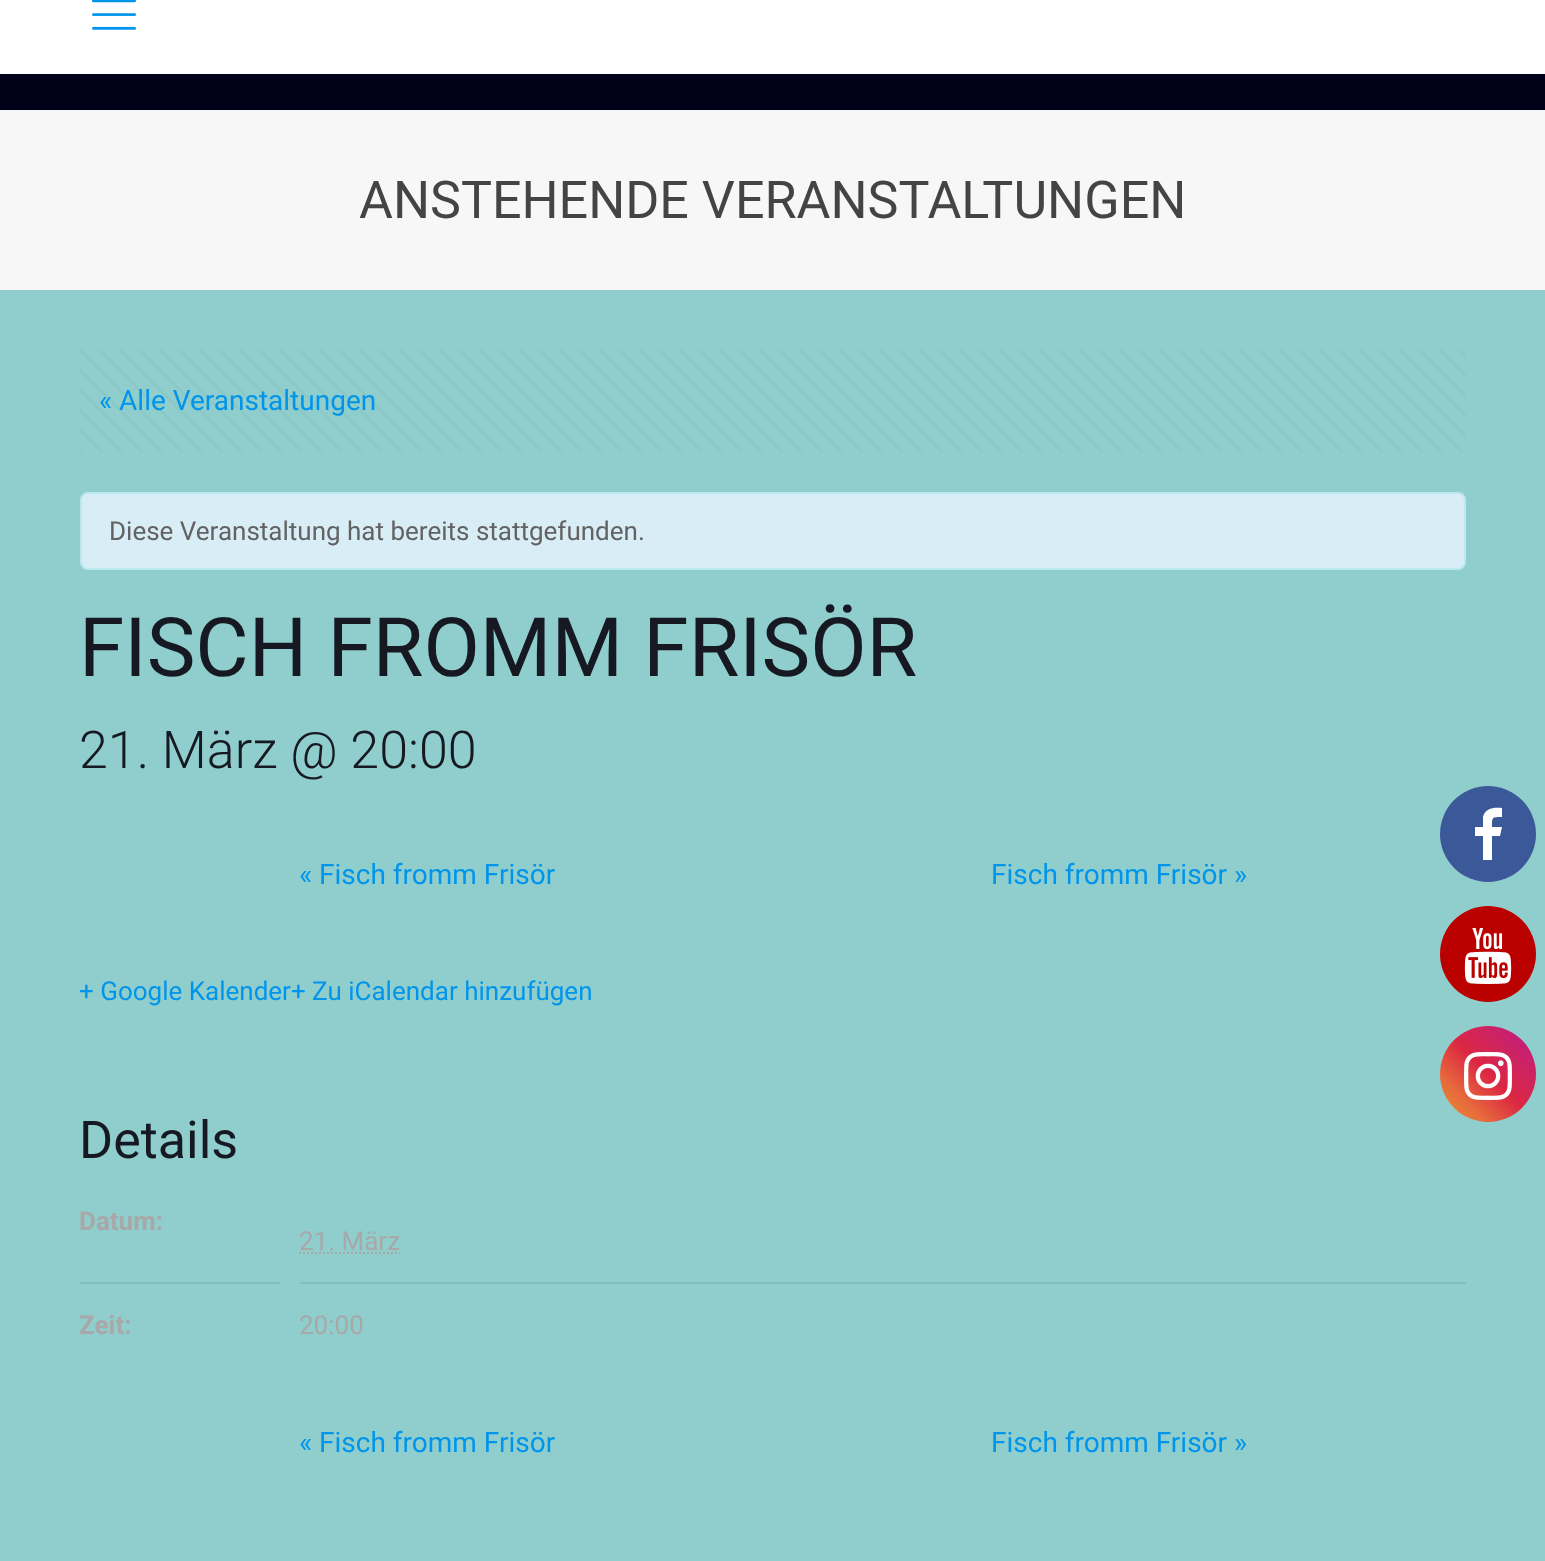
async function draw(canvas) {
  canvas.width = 1545
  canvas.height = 1561
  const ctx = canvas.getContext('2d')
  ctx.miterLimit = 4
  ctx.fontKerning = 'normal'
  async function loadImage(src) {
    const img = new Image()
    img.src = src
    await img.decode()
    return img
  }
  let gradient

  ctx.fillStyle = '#8fcecc'
  ctx.fillRect(0, 0, 1545, 1561)
  ctx.fillStyle = '#000119'
  ctx.fillRect(0, 74, 1545, 36)
  ctx.fillStyle = '#fff'
  ctx.fillRect(0, 0, 1545, 74)
  ctx.drawImage(await loadImage('image0.png'), 92, 0, 44, 30)
  ctx.fillStyle = '#f7f7f7'
  ctx.fillRect(0, 110, 1545, 180)
  ctx.font = '52px Roboto'
  ctx.fillStyle = '#444'
  ctx.fillText('ANSTEHENDE VERANSTALTUNGEN', 359, 218)
  ctx.drawImage(await loadImage('image1.png'), 80, 350, 1386, 102)
  ctx.font = '28px Roboto'
  ctx.fillStyle = '#0095eb'
  ctx.fillText('« Alle Veranstaltungen', 99, 410)
  ctx.fillStyle = '#d9edf7'
  ctx.beginPath()
  ctx.roundRect(81, 493, 1384, 76, 7)
  ctx.fill()
  ctx.strokeStyle = '#bce8f1'
  ctx.lineWidth = 2
  ctx.stroke()
  ctx.font = '26px Roboto'
  ctx.fillStyle = '#626262'
  ctx.fillText('Diese Veranstaltung hat bereits stattgefunden.', 109, 540)
  ctx.font = '82px Roboto'
  ctx.fillStyle = '#161922'
  ctx.fillText('FISCH FROMM FRISÖR', 79, 676)
  ctx.font = '300 52px Roboto'
  ctx.fillText('21. März @ 20:00', 79, 768)
  ctx.font = '28px Roboto'
  ctx.fillStyle = '#0095eb'
  ctx.fillText('« Fisch fromm Frisör', 299, 884)
  ctx.fillText('Fisch fromm Frisör »', 991, 884)
  ctx.font = '26px Roboto'
  ctx.fillText('+ Google Kalender+ Zu iCalendar hinzufügen', 79, 1000)
  ctx.font = '52px Roboto'
  ctx.fillStyle = '#161922'
  ctx.fillText('Details', 79, 1158)
  ctx.font = 'bold 26px Roboto'
  ctx.fillStyle = '#a8a8a8'
  ctx.fillText('Datum:', 79, 1230)
  ctx.font = '26px Roboto'
  ctx.fillText('21. März', 299, 1250)
  ctx.beginPath()
  ctx.moveTo(299, 1253)
  ctx.lineTo(400, 1253)
  ctx.strokeStyle = '#a8a8a8'
  ctx.setLineDash([2, 2])
  ctx.stroke()
  ctx.fillStyle = '#84bebc'
  ctx.fillRect(80, 1282, 200, 2)
  ctx.font = 'bold 26px Roboto'
  ctx.fillStyle = '#a8a8a8'
  ctx.fillText('Zeit:', 79, 1334)
  ctx.fillStyle = '#84bebc'
  ctx.fillRect(300, 1282, 1166, 2)
  ctx.font = '26px Roboto'
  ctx.fillStyle = '#a8a8a8'
  ctx.fillText('20:00', 299, 1334)
  ctx.font = '28px Roboto'
  ctx.fillStyle = '#0095eb'
  ctx.fillText('« Fisch fromm Frisör', 299, 1452)
  ctx.fillText('Fisch fromm Frisör »', 991, 1452)
  ctx.fillStyle = '#3b5998'
  ctx.beginPath()
  ctx.arc(1488, 834, 48, 0, 2 * Math.PI)
  ctx.fill()
  ctx.fillStyle = '#fff'
  ctx.beginPath()
  ctx.moveTo(1502, 808)
  ctx.lineTo(1502, 817)
  ctx.bezierCurveTo(1492, 817, 1492, 817, 1492, 827)
  ctx.lineTo(1502, 827)
  ctx.lineTo(1500, 836)
  ctx.lineTo(1492, 836)
  ctx.lineTo(1492, 860)
  ctx.lineTo(1483, 860)
  ctx.lineTo(1483, 836)
  ctx.lineTo(1475, 836)
  ctx.lineTo(1475, 827)
  ctx.lineTo(1483, 827)
  ctx.lineTo(1483, 817)
  ctx.bezierCurveTo(1485, 808, 1494, 807, 1502, 808)
  ctx.closePath()
  ctx.fill()
  ctx.fillStyle = '#b00'
  ctx.beginPath()
  ctx.arc(1488, 954, 48, 0, 2 * Math.PI)
  ctx.fill()
  ctx.drawImage(await loadImage('image2.png'), 1464, 928, 48, 56)
  gradient = ctx.createLinearGradient(1440, 1122, 1536, 1026)
  gradient.addColorStop(0, '#f09433')
  gradient.addColorStop(0.25, '#e6683c')
  gradient.addColorStop(0.5, '#dc2743')
  gradient.addColorStop(0.75, '#cc2366')
  gradient.addColorStop(1, '#bc1888')
  ctx.fillStyle = gradient
  ctx.beginPath()
  ctx.arc(1488, 1074, 48, 0, 2 * Math.PI)
  ctx.fill()
  ctx.drawImage(await loadImage('image3.png'), 1464, 1052, 48, 48)
}

draw(document.querySelector('canvas'))
